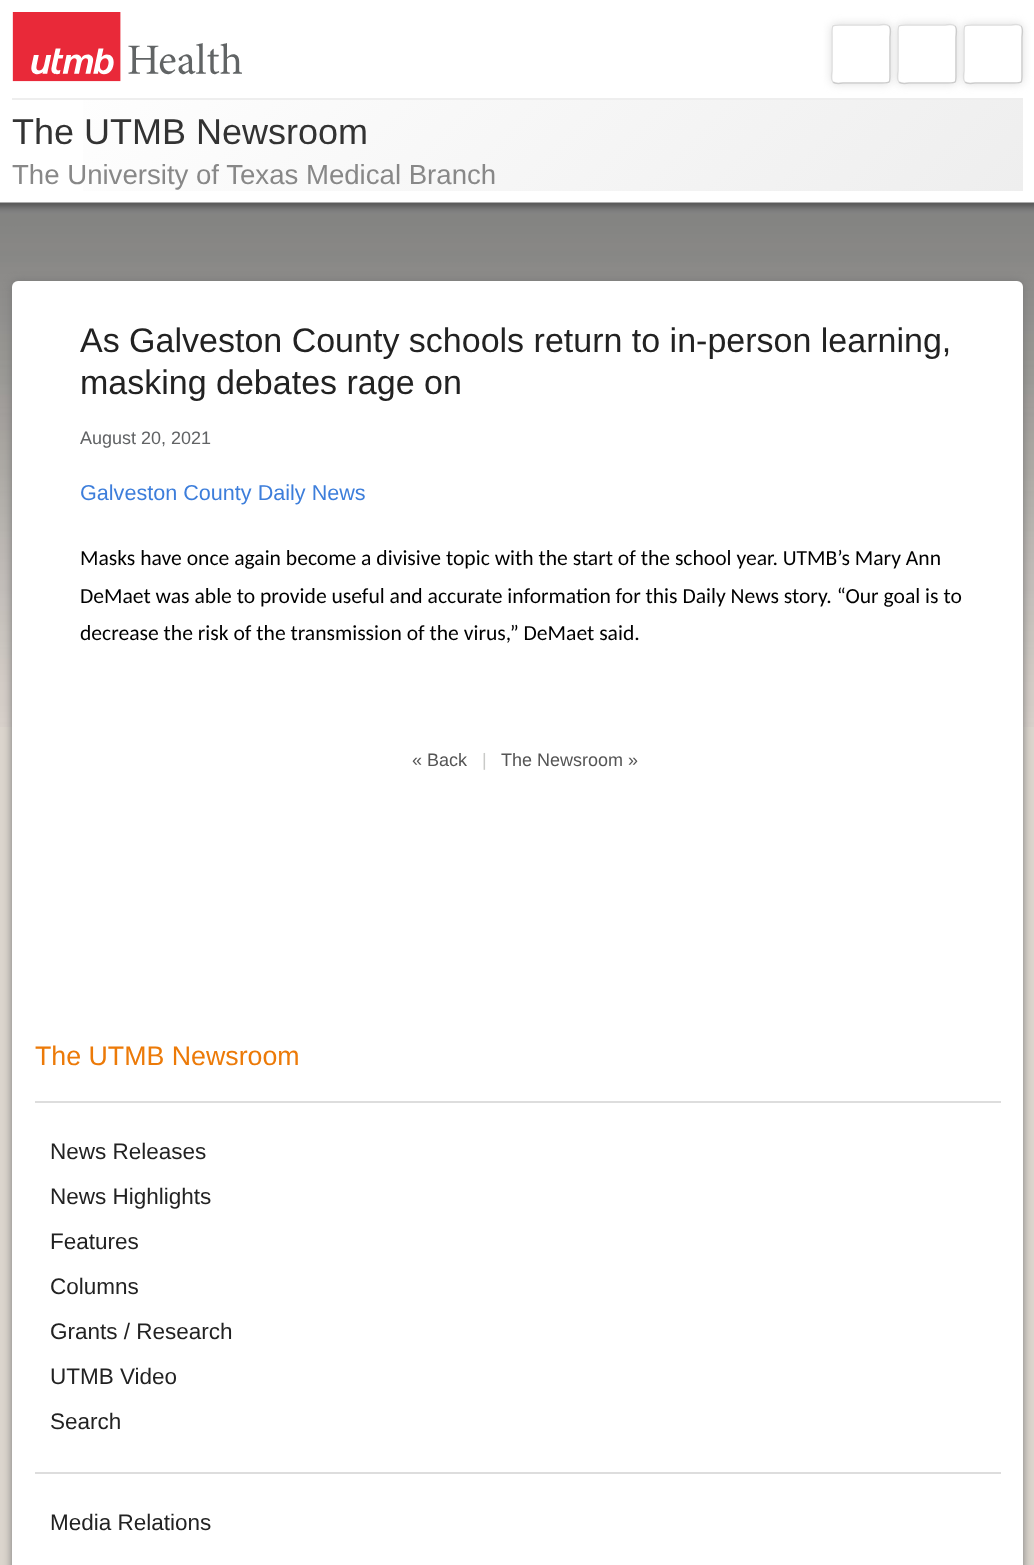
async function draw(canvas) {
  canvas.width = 1034
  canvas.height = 1565
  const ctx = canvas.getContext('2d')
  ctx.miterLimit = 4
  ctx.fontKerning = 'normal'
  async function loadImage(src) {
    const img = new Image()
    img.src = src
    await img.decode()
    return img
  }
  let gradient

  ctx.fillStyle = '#dbd5cd'
  ctx.fillRect(0, 0, 1034, 1565)
  ctx.fillStyle = '#fff'
  ctx.fillRect(0, 0, 1034, 203)
  ctx.drawImage(await loadImage('image0.png'), 12, 12, 230, 70)
  ctx.save()
  ctx.beginPath()
  ctx.moveTo(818, 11)
  ctx.lineTo(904, 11)
  ctx.lineTo(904, 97)
  ctx.lineTo(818, 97)
  ctx.closePath()
  ctx.moveTo(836, 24)
  ctx.lineTo(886, 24)
  ctx.bezierCurveTo(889, 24, 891, 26, 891, 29)
  ctx.lineTo(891, 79)
  ctx.bezierCurveTo(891, 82, 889, 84, 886, 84)
  ctx.lineTo(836, 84)
  ctx.bezierCurveTo(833, 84, 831, 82, 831, 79)
  ctx.lineTo(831, 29)
  ctx.bezierCurveTo(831, 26, 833, 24, 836, 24)
  ctx.closePath()
  ctx.clip('evenodd')
  ctx.fillStyle = '#ddd'
  ctx.filter = 'blur(4px)'
  ctx.beginPath()
  ctx.roundRect(831, 24, 60, 60, 5)
  ctx.fill()
  ctx.filter = 'none'
  ctx.restore()
  ctx.beginPath()
  ctx.moveTo(889, 26)
  ctx.bezierCurveTo(891.5, 28, 890, 36, 890, 37)
  ctx.lineTo(890, 71)
  ctx.bezierCurveTo(890, 84.5, 891.5, 83, 878, 83)
  ctx.lineTo(844, 83)
  ctx.bezierCurveTo(843, 83, 835, 84.5, 833, 82)
  ctx.strokeStyle = '#ccc'
  ctx.lineWidth = 1.5
  ctx.stroke()
  ctx.beginPath()
  ctx.moveTo(833, 82)
  ctx.bezierCurveTo(830.5, 80, 832, 72, 832, 71)
  ctx.lineTo(832, 37)
  ctx.bezierCurveTo(832, 23.5, 830.5, 25, 844, 25)
  ctx.lineTo(878, 25)
  ctx.bezierCurveTo(879, 25, 887, 23.5, 889, 26)
  ctx.strokeStyle = '#ddd'
  ctx.stroke()
  ctx.save()
  ctx.beginPath()
  ctx.moveTo(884, 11)
  ctx.lineTo(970, 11)
  ctx.lineTo(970, 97)
  ctx.lineTo(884, 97)
  ctx.closePath()
  ctx.moveTo(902, 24)
  ctx.lineTo(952, 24)
  ctx.bezierCurveTo(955, 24, 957, 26, 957, 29)
  ctx.lineTo(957, 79)
  ctx.bezierCurveTo(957, 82, 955, 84, 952, 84)
  ctx.lineTo(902, 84)
  ctx.bezierCurveTo(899, 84, 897, 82, 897, 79)
  ctx.lineTo(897, 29)
  ctx.bezierCurveTo(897, 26, 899, 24, 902, 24)
  ctx.closePath()
  ctx.clip('evenodd')
  ctx.fillStyle = '#ddd'
  ctx.filter = 'blur(4px)'
  ctx.beginPath()
  ctx.roundRect(897, 24, 60, 60, 5)
  ctx.fill()
  ctx.filter = 'none'
  ctx.restore()
  ctx.beginPath()
  ctx.moveTo(955, 26)
  ctx.bezierCurveTo(957.5, 28, 956, 36, 956, 37)
  ctx.lineTo(956, 71)
  ctx.bezierCurveTo(956, 84.5, 957.5, 83, 944, 83)
  ctx.lineTo(910, 83)
  ctx.bezierCurveTo(909, 83, 901, 84.5, 899, 82)
  ctx.strokeStyle = '#ccc'
  ctx.stroke()
  ctx.beginPath()
  ctx.moveTo(899, 82)
  ctx.bezierCurveTo(896.5, 80, 898, 72, 898, 71)
  ctx.lineTo(898, 37)
  ctx.bezierCurveTo(898, 23.5, 896.5, 25, 910, 25)
  ctx.lineTo(944, 25)
  ctx.bezierCurveTo(945, 25, 953, 23.5, 955, 26)
  ctx.strokeStyle = '#ddd'
  ctx.stroke()
  ctx.save()
  ctx.beginPath()
  ctx.moveTo(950, 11)
  ctx.lineTo(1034, 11)
  ctx.lineTo(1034, 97)
  ctx.lineTo(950, 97)
  ctx.closePath()
  ctx.moveTo(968, 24)
  ctx.lineTo(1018, 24)
  ctx.bezierCurveTo(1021, 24, 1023, 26, 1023, 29)
  ctx.lineTo(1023, 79)
  ctx.bezierCurveTo(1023, 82, 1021, 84, 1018, 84)
  ctx.lineTo(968, 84)
  ctx.bezierCurveTo(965, 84, 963, 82, 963, 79)
  ctx.lineTo(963, 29)
  ctx.bezierCurveTo(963, 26, 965, 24, 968, 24)
  ctx.closePath()
  ctx.clip('evenodd')
  ctx.fillStyle = '#ddd'
  ctx.filter = 'blur(4px)'
  ctx.beginPath()
  ctx.roundRect(963, 24, 60, 60, 5)
  ctx.fill()
  ctx.filter = 'none'
  ctx.restore()
  ctx.beginPath()
  ctx.moveTo(1021, 26)
  ctx.bezierCurveTo(1023.5, 28, 1022, 36, 1022, 37)
  ctx.lineTo(1022, 71)
  ctx.bezierCurveTo(1022, 84.5, 1023.5, 83, 1010, 83)
  ctx.lineTo(976, 83)
  ctx.bezierCurveTo(975, 83, 967, 84.5, 965, 82)
  ctx.strokeStyle = '#ccc'
  ctx.stroke()
  ctx.beginPath()
  ctx.moveTo(965, 82)
  ctx.bezierCurveTo(962.5, 80, 964, 72, 964, 71)
  ctx.lineTo(964, 37)
  ctx.bezierCurveTo(964, 23.5, 962.5, 25, 976, 25)
  ctx.lineTo(1010, 25)
  ctx.bezierCurveTo(1011, 25, 1019, 23.5, 1021, 26)
  ctx.strokeStyle = '#ddd'
  ctx.stroke()
  gradient = ctx.createLinearGradient(242, -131, 793, 420)
  gradient.addColorStop(0, '#fff')
  gradient.addColorStop(1, '#eee')
  ctx.fillStyle = gradient
  ctx.fillRect(83, 100, 940, 91)
  ctx.fillStyle = '#eee'
  ctx.fillRect(12, 98, 1011, 2)
  ctx.font = '36px Liberation Sans'
  ctx.fillStyle = '#333'
  ctx.fillText('The UTMB Newsroom', 12, 144)
  ctx.font = '27.6px Liberation Sans'
  ctx.fillStyle = '#888'
  ctx.fillText('The University of Texas Medical Branch', 12, 184)
  ctx.drawImage(await loadImage('image1.png'), 0, 202, 1034, 525)
  ctx.fillStyle = '#777'
  ctx.filter = 'blur(4px)'
  ctx.beginPath()
  ctx.roundRect(12, 281, 1011, 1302, 6)
  ctx.fill()
  ctx.filter = 'none'
  ctx.fillStyle = '#fff'
  ctx.beginPath()
  ctx.roundRect(12, 281, 1011, 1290, 6)
  ctx.fill()
  ctx.font = '34px Liberation Sans'
  ctx.fillStyle = '#222'
  ctx.fillText('As Galveston County schools return to in-person learning,', 80, 352)
  ctx.fillText('masking debates rage on', 80, 394)
  ctx.font = '18px Liberation Sans'
  ctx.fillStyle = '#616365'
  ctx.fillText('August 20, 2021', 80, 444)
  ctx.font = '21.6px Liberation Sans'
  ctx.fillStyle = '#3d7edb'
  ctx.fillText('Galveston County Daily News', 80, 500)
  ctx.font = '21.6px Carlito'
  ctx.fillStyle = '#000'
  ctx.fillText('Masks have once again become a divisive topic with the start of the school year. UTMB’s Mary Ann', 80, 565)
  ctx.fillText('DeMaet was able to provide useful and accurate information for this Daily News story. “Our goal is to', 80, 603)
  ctx.fillText('decrease the risk of the transmission of the virus,” DeMaet said.', 80, 640)
  ctx.font = '18px Liberation Sans'
  ctx.fillStyle = '#555'
  ctx.fillText('« Back', 412, 766)
  ctx.fillStyle = '#c9cac8'
  ctx.fillText('|', 482, 766)
  ctx.fillStyle = '#555'
  ctx.fillText('The Newsroom »', 501, 766)
  ctx.font = '26.75px Liberation Sans'
  ctx.fillStyle = '#ec7a08'
  ctx.fillText('The UTMB Newsroom', 35, 1065)
  ctx.fillStyle = '#ddd'
  ctx.fillRect(35, 1101, 966, 2)
  ctx.font = '22.5px Liberation Sans'
  ctx.fillStyle = '#222'
  ctx.fillText('News Releases', 50, 1159)
  ctx.fillText('News Highlights', 50, 1204)
  ctx.fillText('Features', 50, 1249)
  ctx.fillText('Columns', 50, 1294)
  ctx.fillText('Grants / Research', 50, 1339)
  ctx.fillText('UTMB Video', 50, 1384)
  ctx.fillText('Search', 50, 1429)
  ctx.fillStyle = '#ddd'
  ctx.fillRect(35, 1472, 966, 2)
  ctx.fillStyle = '#222'
  ctx.fillText('Media Relations', 50, 1530)
}

draw(document.querySelector('canvas'))
